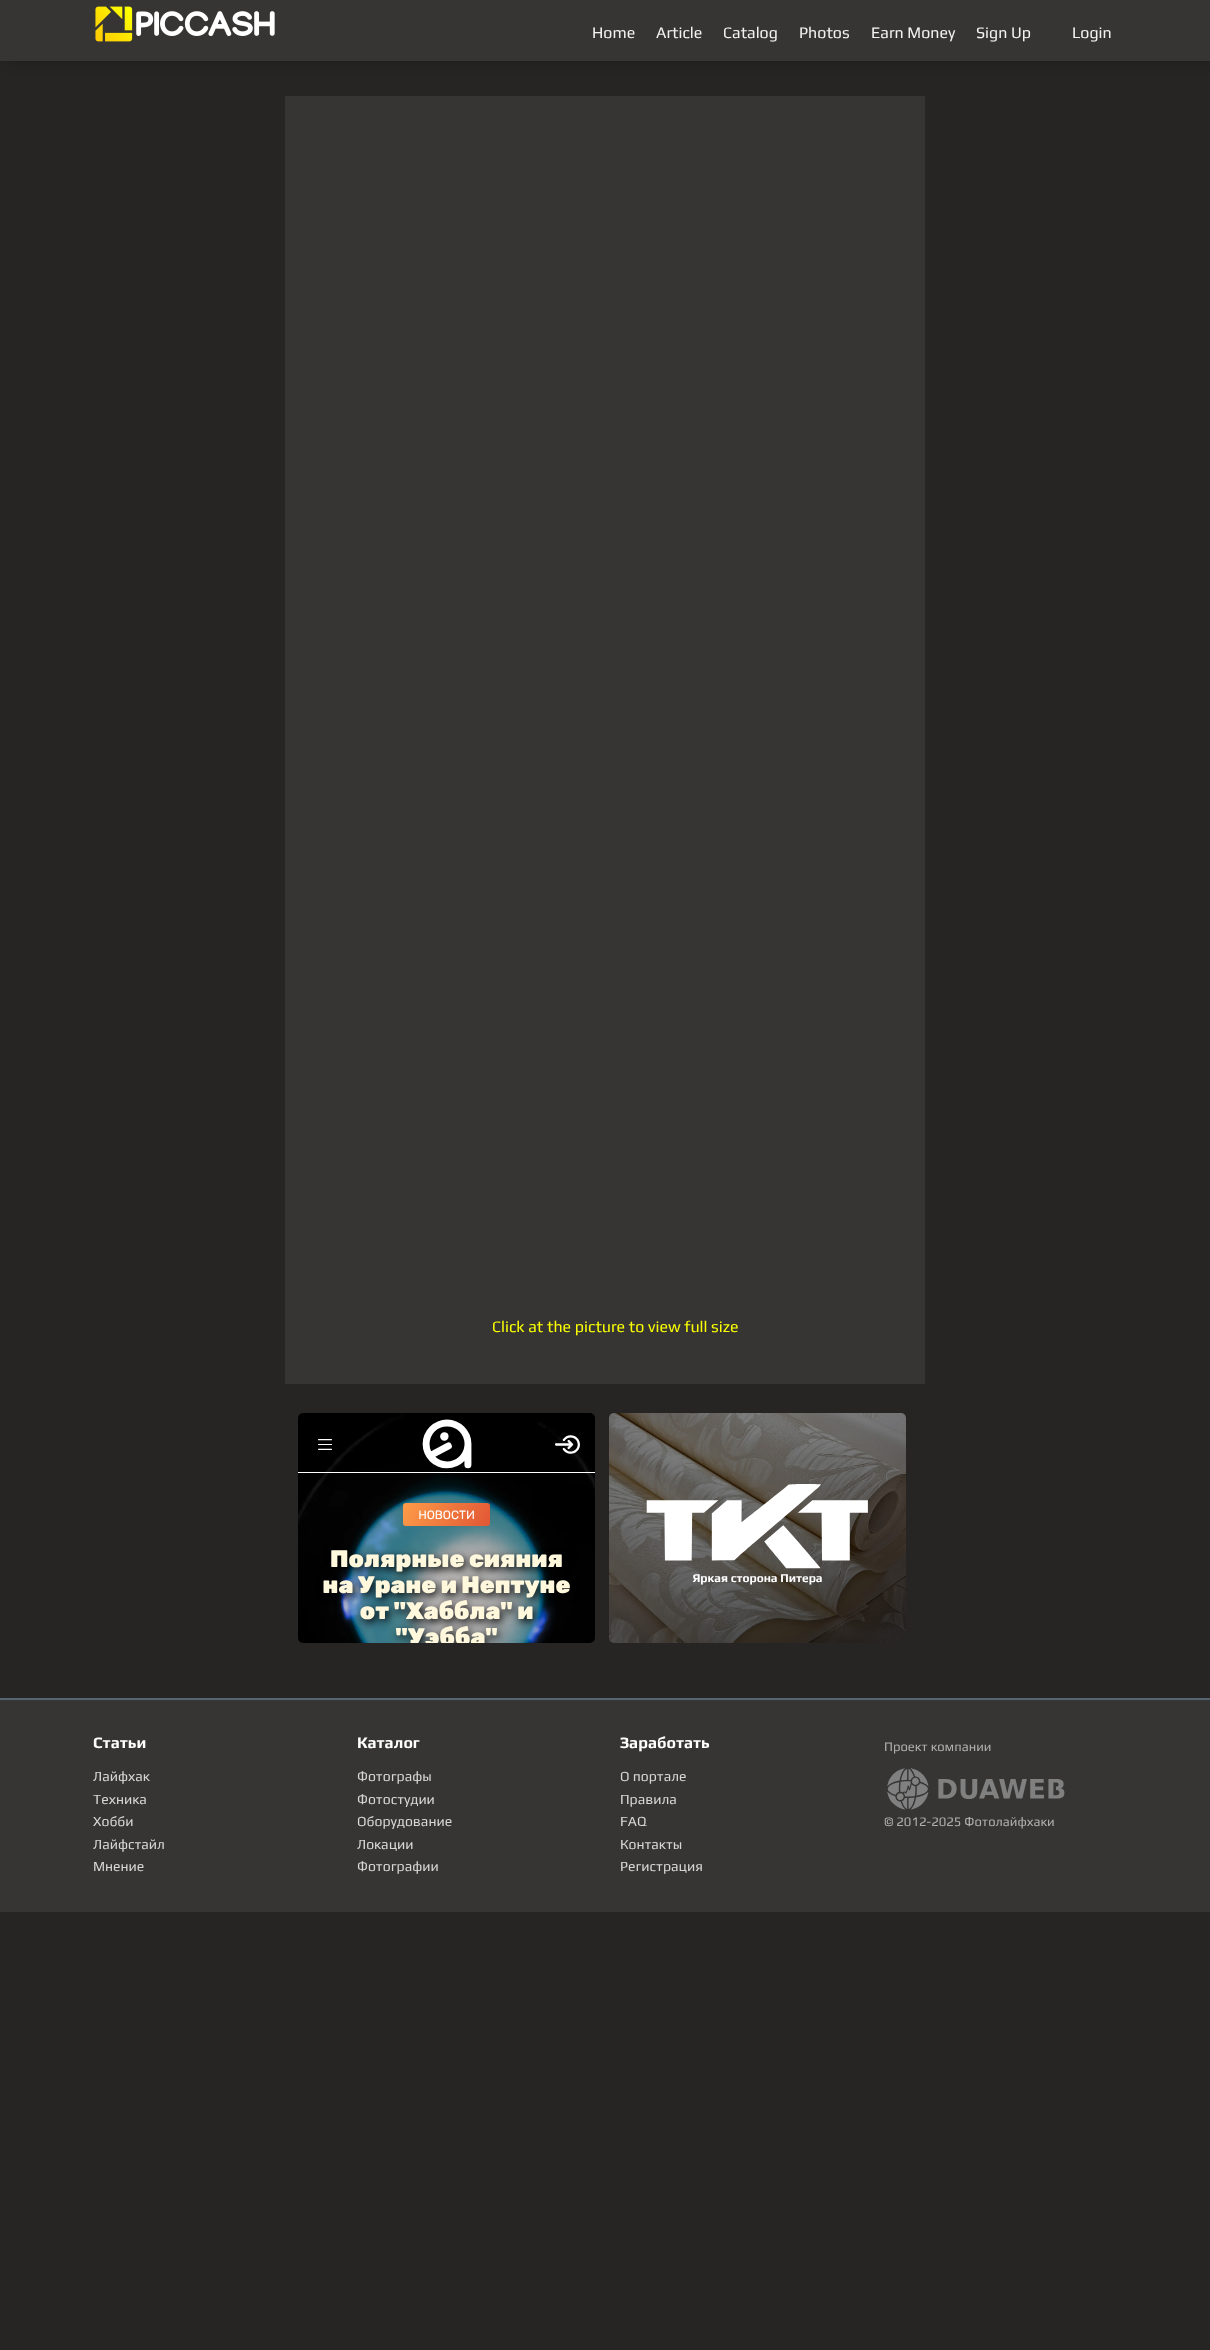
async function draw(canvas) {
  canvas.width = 1210
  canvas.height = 2350
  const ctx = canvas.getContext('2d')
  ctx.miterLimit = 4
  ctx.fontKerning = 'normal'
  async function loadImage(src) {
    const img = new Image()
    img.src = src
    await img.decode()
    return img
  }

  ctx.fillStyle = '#262524'
  ctx.fillRect(0, 0, 1210, 2350)
  ctx.fillStyle = '#000'
  ctx.filter = 'blur(9.5px)'
  ctx.beginPath()
  ctx.rect(7, -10, 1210, 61)
  ctx.fill()
  ctx.filter = 'none'
  ctx.fillStyle = '#363534'
  ctx.fillRect(0, 0, 1210, 61)
  ctx.drawImage(await loadImage('image0.png'), 95, 6, 180, 36)
  ctx.font = '16px Play'
  ctx.fillStyle = '#f2f2f2'
  ctx.fillText('Home', 592, 38)
  ctx.fillText('Article', 656, 38)
  ctx.fillText('Catalog', 723, 38)
  ctx.fillText('Photos', 799, 38)
  ctx.fillText('Earn Money', 871, 38)
  ctx.fillText('Sign Up', 976, 38)
  ctx.fillText('Login', 1072, 38)
  ctx.fillStyle = '#363534'
  ctx.fillRect(285, 96, 640, 1288)
  ctx.fillStyle = '#fbff00'
  ctx.fillText('Click at the picture to view full size', 492, 1332)
  ctx.drawImage(await loadImage('image1.png'), 298, 1413, 608, 230)
  ctx.fillStyle = '#363534'
  ctx.fillRect(0, 1700, 1210, 212)
  ctx.fillStyle = '#566574'
  ctx.fillRect(0, 1698, 1210, 2)
  ctx.font = 'bold 16px Play'
  ctx.fillStyle = '#fff'
  ctx.fillText('Статьи', 93, 1748)
  ctx.font = '14px Play'
  ctx.fillStyle = '#d7d7d6'
  ctx.fillText('Лайфхак', 93, 1781)
  ctx.fillText('Техника', 93, 1804)
  ctx.fillText('Хобби', 93, 1826)
  ctx.fillText('Лайфстайл', 93, 1849)
  ctx.fillText('Мнение', 93, 1871)
  ctx.font = 'bold 16px Play'
  ctx.fillStyle = '#fff'
  ctx.fillText('Каталог', 357, 1748)
  ctx.font = '14px Play'
  ctx.fillStyle = '#d7d7d6'
  ctx.fillText('Фотографы', 357, 1781)
  ctx.fillText('Фотостудии', 357, 1804)
  ctx.fillText('Оборудование', 357, 1826)
  ctx.fillText('Локации', 357, 1849)
  ctx.fillText('Фотографии', 357, 1871)
  ctx.font = 'bold 16px Play'
  ctx.fillStyle = '#fff'
  ctx.fillText('Заработать', 620, 1748)
  ctx.font = '14px Play'
  ctx.fillStyle = '#d7d7d6'
  ctx.fillText('О портале', 620, 1781)
  ctx.fillText('Правила', 620, 1804)
  ctx.fillText('FAQ', 620, 1826)
  ctx.fillText('Контакты', 620, 1849)
  ctx.fillText('Регистрация', 620, 1871)
  ctx.font = '13px Play'
  ctx.fillStyle = '#afaeae'
  ctx.fillText('Проект компании', 884, 1751)
  ctx.drawImage(await loadImage('image2.png'), 887, 1768, 178, 42)
  ctx.fillText('© 2012-2025 Фотолайфхаки', 884, 1826)
}

draw(document.querySelector('canvas'))
